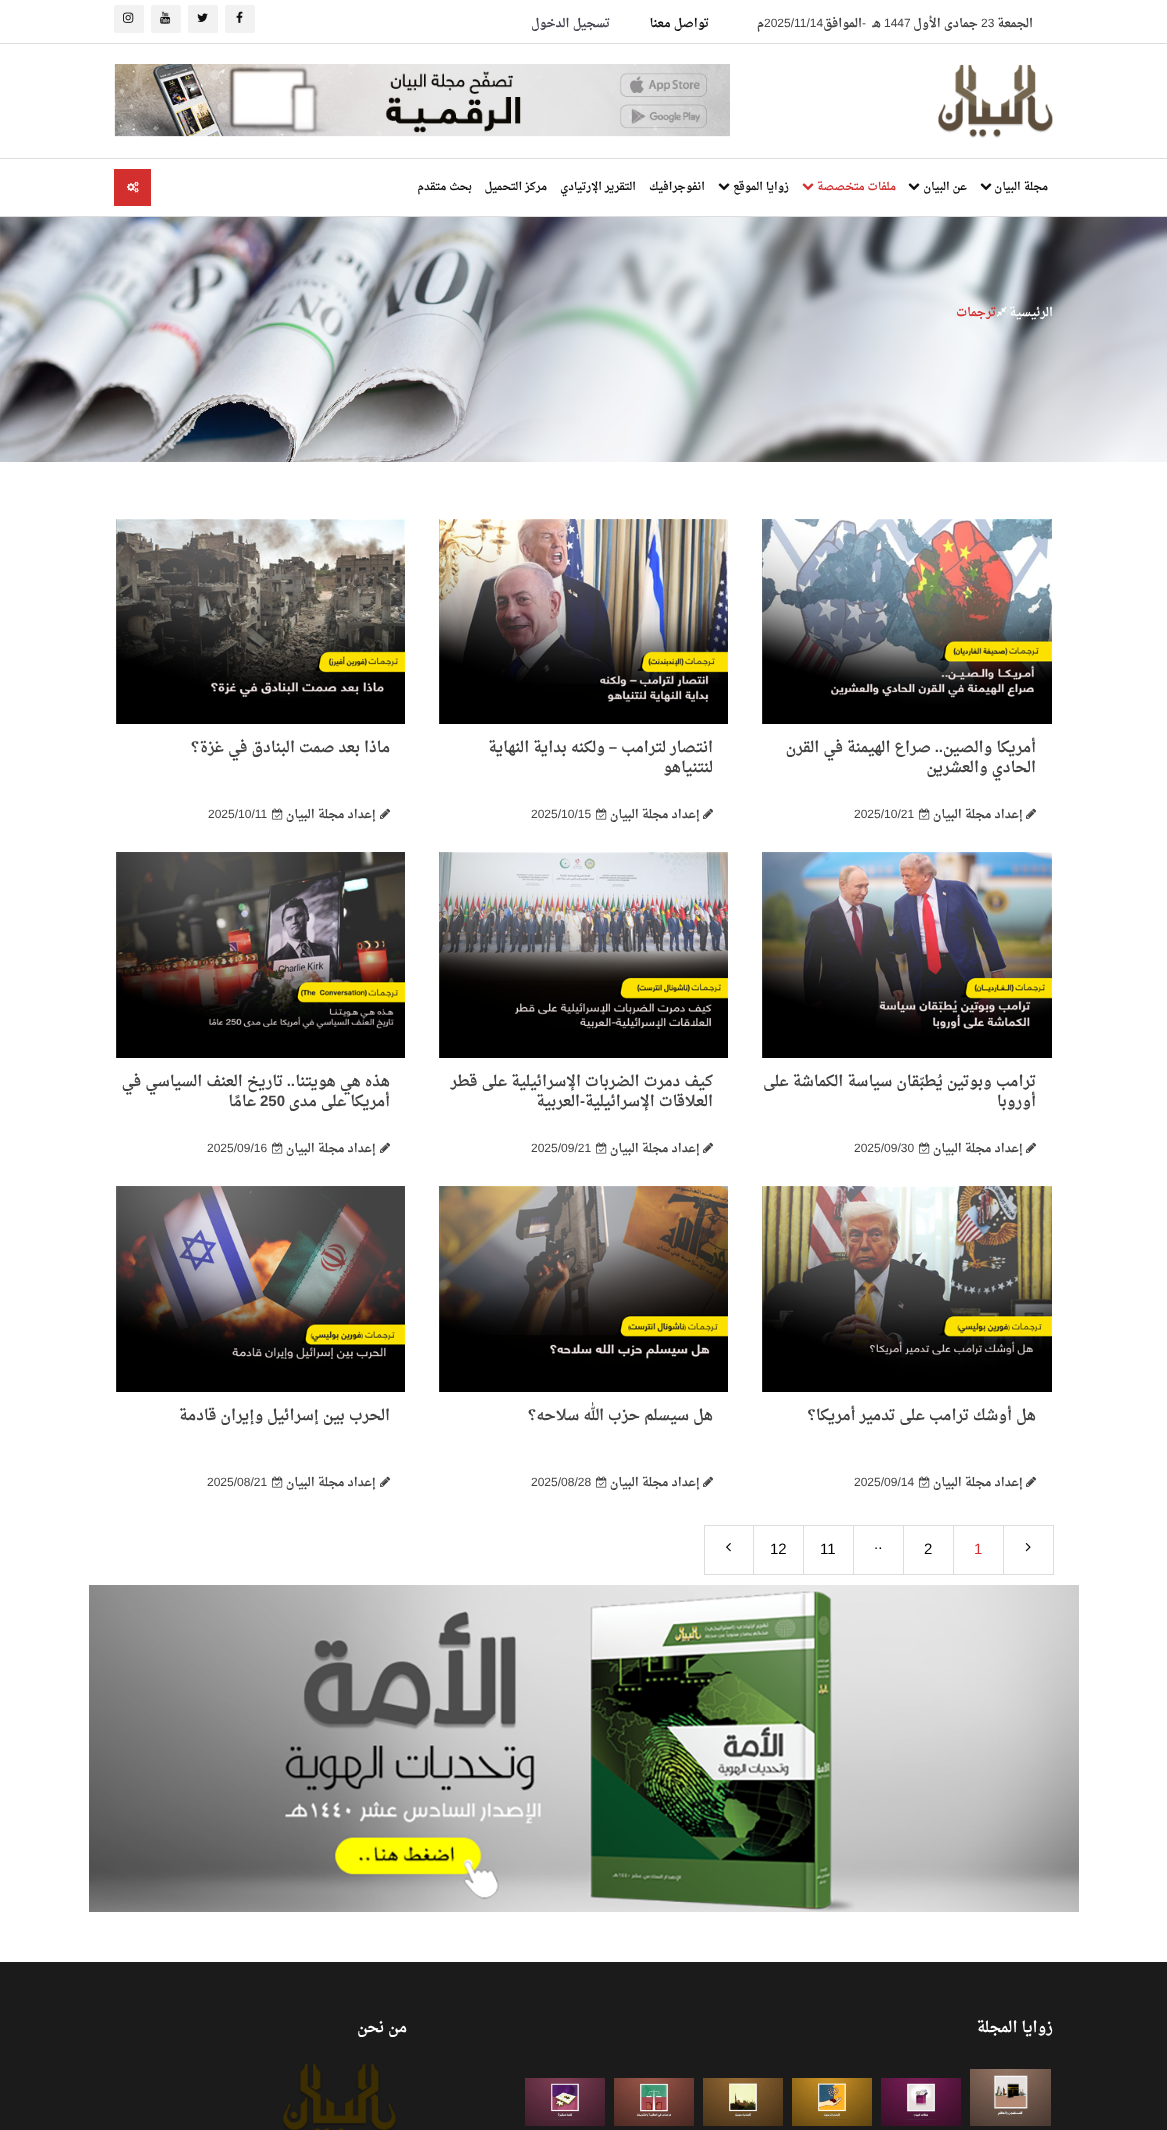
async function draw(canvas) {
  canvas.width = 1167
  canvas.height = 2130
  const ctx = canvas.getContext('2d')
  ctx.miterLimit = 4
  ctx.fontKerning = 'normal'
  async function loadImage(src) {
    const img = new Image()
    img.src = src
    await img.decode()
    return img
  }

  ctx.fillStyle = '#fff'
  ctx.fillRect(0, 0, 1167, 2130)
  ctx.fillStyle = '#ddd'
  ctx.fillRect(0, 43, 1167, 1)
  ctx.direction = 'rtl'
  ctx.font = 'bold 12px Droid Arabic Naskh'
  ctx.fillStyle = '#434343'
  ctx.fillText('الجمعة', 1033, 27)
  ctx.direction = 'ltr'
  ctx.font = '12px Liberation Sans'
  ctx.fillText('23', 981, 27)
  ctx.direction = 'rtl'
  ctx.font = 'bold 12px Droid Arabic Naskh'
  ctx.fillText('جمادى الأول', 978, 27)
  ctx.direction = 'ltr'
  ctx.font = '12px Liberation Sans'
  ctx.fillText('1447', 884, 27)
  ctx.direction = 'rtl'
  ctx.font = 'bold 12px Droid Arabic Naskh'
  ctx.fillText('هـ', 881, 27)
  ctx.direction = 'ltr'
  ctx.font = '12px Liberation Sans'
  ctx.fillText('-', 862, 27)
  ctx.direction = 'rtl'
  ctx.font = 'bold 12px Droid Arabic Naskh'
  ctx.fillText('الموافق', 862, 27)
  ctx.direction = 'ltr'
  ctx.font = '12px Liberation Sans'
  ctx.fillText('2025/11/14', 764, 27)
  ctx.direction = 'rtl'
  ctx.font = 'bold 12px Droid Arabic Naskh'
  ctx.fillText('م', 764, 27)
  ctx.fillStyle = '#101010'
  ctx.fillText('تواصل معنا', 709, 27)
  ctx.fillStyle = '#43434f'
  ctx.fillText('تسجيل الدخول', 610, 27)
  ctx.fillStyle = '#f2f2f2'
  ctx.beginPath()
  ctx.roundRect(225, 5, 30, 28, 2)
  ctx.fill()
  ctx.drawImage(await loadImage('image0.png'), 236, 11, 7, 12)
  ctx.beginPath()
  ctx.roundRect(188, 5, 30, 28, 2)
  ctx.fill()
  ctx.drawImage(await loadImage('image1.png'), 197, 13, 11, 9)
  ctx.beginPath()
  ctx.roundRect(151, 5, 30, 28, 2)
  ctx.fill()
  ctx.drawImage(await loadImage('image2.png'), 160, 11, 11, 13)
  ctx.beginPath()
  ctx.roundRect(114, 5, 30, 28, 2)
  ctx.fill()
  ctx.drawImage(await loadImage('image3.png'), 123, 12, 11, 11)
  ctx.drawImage(await loadImage('image4.png'), 938, 64, 115, 74)
  ctx.drawImage(await loadImage('image5.png'), 114, 64, 616, 73)
  ctx.fillStyle = '#ddd'
  ctx.fillRect(0, 158, 1167, 1)
  ctx.fillRect(0, 216, 1167, 1)
  ctx.font = 'bold 11px Droid Arabic Naskh'
  ctx.fillStyle = '#101010'
  ctx.fillText('مجلة البيان', 1048, 190)
  ctx.drawImage(await loadImage('image6.png'), 980, 183, 12, 8)
  ctx.fillText('عن البيان', 967, 190)
  ctx.drawImage(await loadImage('image6.png'), 908, 183, 12, 8)
  ctx.fillStyle = '#d32f2f'
  ctx.fillText('ملفات متخصصة', 896, 190)
  ctx.drawImage(await loadImage('image7.png'), 802, 183, 12, 8)
  ctx.fillStyle = '#101010'
  ctx.fillText('زوايا الموقع', 789, 190)
  ctx.drawImage(await loadImage('image6.png'), 718, 183, 12, 8)
  ctx.fillText('انفوجرافيك', 705, 190)
  ctx.fillText('التقرير الإرتيادي', 636, 190)
  ctx.fillText('مركز التحميل', 547, 190)
  ctx.fillText('بحث متقدم', 472, 190)
  ctx.fillStyle = '#d32f2f'
  ctx.fillRect(114, 169, 37, 37)
  ctx.drawImage(await loadImage('image8.png'), 127, 181, 12, 12)
  ctx.drawImage(await loadImage('image9.png'), 0, 217, 1167, 245)
  ctx.font = 'bold 12px Droid Arabic Naskh'
  ctx.fillStyle = '#fff'
  ctx.fillText('الرئيسية', 1053, 316)
  ctx.drawImage(await loadImage('image10.png'), 996, 306, 11, 11)
  ctx.fillStyle = '#d32f2f'
  ctx.fillText('ترجمات', 996, 316)
  ctx.drawImage(await loadImage('image11.png'), 762, 519, 290, 205)
  ctx.font = 'bold 15px Droid Arabic Naskh'
  ctx.fillStyle = '#434343'
  ctx.fillText('أمريكا والصين', 1036, 752)
  ctx.font = 'bold 15px Liberation Sans'
  ctx.fillText('..', 943, 752)
  ctx.font = 'bold 15px Droid Arabic Naskh'
  ctx.fillText('صراع الهيمنة في القرن', 931, 752)
  ctx.fillText('الحادي والعشرين', 1036, 772)
  ctx.drawImage(await loadImage('image12.png'), 1026, 808, 11, 11)
  ctx.font = 'bold 12px Droid Arabic Naskh'
  ctx.fillText('إعداد مجلة البيان', 1023, 818)
  ctx.drawImage(await loadImage('image13.png'), 919, 808, 11, 12)
  ctx.direction = 'ltr'
  ctx.font = '12px Liberation Sans'
  ctx.fillText('2025/10/21', 854, 818)
  ctx.drawImage(await loadImage('image14.png'), 439, 519, 289, 205)
  ctx.direction = 'rtl'
  ctx.font = 'bold 15px Droid Arabic Naskh'
  ctx.fillText('انتصار لترامب', 713, 752)
  ctx.font = 'bold 15px Liberation Sans'
  ctx.fillText('–', 617, 752)
  ctx.font = 'bold 15px Droid Arabic Naskh'
  ctx.fillText('ولكنه بداية النهاية', 605, 752)
  ctx.fillText('لنتنياهو', 713, 772)
  ctx.drawImage(await loadImage('image15.png'), 703, 808, 10, 11)
  ctx.font = 'bold 12px Droid Arabic Naskh'
  ctx.fillText('إعداد مجلة البيان', 700, 818)
  ctx.drawImage(await loadImage('image13.png'), 596, 808, 11, 12)
  ctx.direction = 'ltr'
  ctx.font = '12px Liberation Sans'
  ctx.fillText('2025/10/15', 531, 818)
  ctx.drawImage(await loadImage('image16.png'), 116, 519, 289, 205)
  ctx.direction = 'rtl'
  ctx.font = 'bold 15px Droid Arabic Naskh'
  ctx.fillText('ماذا بعد صمت البنادق في غزة؟', 390, 752)
  ctx.drawImage(await loadImage('image15.png'), 380, 808, 10, 11)
  ctx.font = 'bold 12px Droid Arabic Naskh'
  ctx.fillText('إعداد مجلة البيان', 376, 818)
  ctx.drawImage(await loadImage('image13.png'), 272, 808, 11, 12)
  ctx.direction = 'ltr'
  ctx.font = '12px Liberation Sans'
  ctx.fillText('2025/10/11', 208, 818)
  ctx.drawImage(await loadImage('image17.png'), 762, 852, 290, 206)
  ctx.direction = 'rtl'
  ctx.font = 'bold 15px Droid Arabic Naskh'
  ctx.fillText('ترامب وبوتين يُطبّقان سياسة الكماشة على', 1036, 1086)
  ctx.fillText('أوروبا', 1036, 1106)
  ctx.drawImage(await loadImage('image12.png'), 1026, 1142, 11, 11)
  ctx.font = 'bold 12px Droid Arabic Naskh'
  ctx.fillText('إعداد مجلة البيان', 1023, 1152)
  ctx.drawImage(await loadImage('image13.png'), 919, 1142, 11, 12)
  ctx.direction = 'ltr'
  ctx.font = '12px Liberation Sans'
  ctx.fillText('2025/09/30', 854, 1152)
  ctx.drawImage(await loadImage('image18.png'), 439, 852, 289, 206)
  ctx.direction = 'rtl'
  ctx.font = 'bold 15px Droid Arabic Naskh'
  ctx.fillText('كيف دمرت الضربات الإسرائيلية على قطر', 713, 1086)
  ctx.fillText('العلاقات الإسرائيلية', 713, 1106)
  ctx.font = 'bold 15px Liberation Sans'
  ctx.fillText('-', 585, 1106)
  ctx.font = 'bold 15px Droid Arabic Naskh'
  ctx.fillText('العربية', 580, 1106)
  ctx.drawImage(await loadImage('image15.png'), 703, 1142, 10, 11)
  ctx.font = 'bold 12px Droid Arabic Naskh'
  ctx.fillText('إعداد مجلة البيان', 700, 1152)
  ctx.drawImage(await loadImage('image13.png'), 596, 1142, 11, 12)
  ctx.direction = 'ltr'
  ctx.font = '12px Liberation Sans'
  ctx.fillText('2025/09/21', 531, 1152)
  ctx.drawImage(await loadImage('image19.png'), 116, 852, 289, 206)
  ctx.direction = 'rtl'
  ctx.font = 'bold 15px Droid Arabic Naskh'
  ctx.fillText('هذه هي هويتنا', 390, 1086)
  ctx.font = 'bold 15px Liberation Sans'
  ctx.fillText('..', 295, 1086)
  ctx.font = 'bold 15px Droid Arabic Naskh'
  ctx.fillText('تاريخ العنف السياسي في', 283, 1086)
  ctx.fillText('أمريكا على مدى', 390, 1106)
  ctx.direction = 'ltr'
  ctx.font = 'bold 15px Liberation Sans'
  ctx.fillText('250', 260, 1106)
  ctx.direction = 'rtl'
  ctx.font = 'bold 15px Droid Arabic Naskh'
  ctx.fillText('عامًا', 256, 1106)
  ctx.drawImage(await loadImage('image15.png'), 380, 1142, 10, 11)
  ctx.font = 'bold 12px Droid Arabic Naskh'
  ctx.fillText('إعداد مجلة البيان', 376, 1152)
  ctx.drawImage(await loadImage('image13.png'), 272, 1142, 11, 12)
  ctx.direction = 'ltr'
  ctx.font = '12px Liberation Sans'
  ctx.fillText('2025/09/16', 207, 1152)
  ctx.drawImage(await loadImage('image20.png'), 762, 1186, 290, 206)
  ctx.direction = 'rtl'
  ctx.font = 'bold 15px Droid Arabic Naskh'
  ctx.fillText('هل أوشك ترامب على تدمير أمريكا؟', 1036, 1420)
  ctx.drawImage(await loadImage('image12.png'), 1026, 1476, 11, 11)
  ctx.font = 'bold 12px Droid Arabic Naskh'
  ctx.fillText('إعداد مجلة البيان', 1023, 1486)
  ctx.drawImage(await loadImage('image13.png'), 919, 1476, 11, 12)
  ctx.direction = 'ltr'
  ctx.font = '12px Liberation Sans'
  ctx.fillText('2025/09/14', 854, 1486)
  ctx.drawImage(await loadImage('image21.png'), 439, 1186, 289, 206)
  ctx.direction = 'rtl'
  ctx.font = 'bold 15px Droid Arabic Naskh'
  ctx.fillText('هل سيسلم حزب الله سلاحه؟', 713, 1420)
  ctx.drawImage(await loadImage('image15.png'), 703, 1476, 10, 11)
  ctx.font = 'bold 12px Droid Arabic Naskh'
  ctx.fillText('إعداد مجلة البيان', 700, 1486)
  ctx.drawImage(await loadImage('image13.png'), 596, 1476, 11, 12)
  ctx.direction = 'ltr'
  ctx.font = '12px Liberation Sans'
  ctx.fillText('2025/08/28', 531, 1486)
  ctx.drawImage(await loadImage('image22.png'), 116, 1186, 289, 206)
  ctx.direction = 'rtl'
  ctx.font = 'bold 15px Droid Arabic Naskh'
  ctx.fillText('الحرب بين إسرائيل وإيران قادمة', 390, 1420)
  ctx.drawImage(await loadImage('image15.png'), 380, 1476, 10, 11)
  ctx.font = 'bold 12px Droid Arabic Naskh'
  ctx.fillText('إعداد مجلة البيان', 376, 1486)
  ctx.drawImage(await loadImage('image13.png'), 272, 1476, 11, 12)
  ctx.direction = 'ltr'
  ctx.font = '12px Liberation Sans'
  ctx.fillText('2025/08/21', 207, 1486)
  ctx.fillStyle = '#ddd'
  ctx.fillRect(754, 1525, 300, 1)
  ctx.fillRect(1053, 1525, 1, 50)
  ctx.fillRect(1004, 1574, 50, 1)
  ctx.drawImage(await loadImage('image23.png'), 1025, 1543, 6, 9)
  ctx.strokeStyle = '#ddd'
  ctx.strokeRect(704.5, 1525.5, 49, 49)
  ctx.drawImage(await loadImage('image24.png'), 726, 1543, 5, 9)
  ctx.fillRect(1003, 1525, 1, 50)
  ctx.fillRect(954, 1574, 50, 1)
  ctx.font = '15px Liberation Sans'
  ctx.fillStyle = '#d32f2f'
  ctx.fillText('1', 974, 1554)
  ctx.fillStyle = '#ddd'
  ctx.fillRect(953, 1525, 1, 50)
  ctx.fillRect(904, 1574, 50, 1)
  ctx.fillStyle = '#000'
  ctx.fillText('2', 924, 1554)
  ctx.fillStyle = '#ddd'
  ctx.fillRect(903, 1525, 1, 50)
  ctx.fillRect(854, 1574, 50, 1)
  ctx.fillStyle = '#000'
  ctx.fillText('..', 874, 1549)
  ctx.fillStyle = '#ddd'
  ctx.fillRect(853, 1525, 1, 50)
  ctx.fillRect(804, 1574, 50, 1)
  ctx.fillStyle = '#000'
  ctx.fillText('11', 820, 1554)
  ctx.fillStyle = '#ddd'
  ctx.fillRect(803, 1525, 1, 50)
  ctx.fillRect(754, 1574, 50, 1)
  ctx.fillStyle = '#000'
  ctx.fillText('12', 770, 1554)
  ctx.drawImage(await loadImage('image25.png'), 89, 1585, 990, 327)
  ctx.fillStyle = '#1b1b1b'
  ctx.fillRect(0, 1962, 1167, 168)
  ctx.save()
  ctx.beginPath()
  ctx.rect(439, 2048, 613, 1)
  ctx.clip()
  ctx.fillStyle = '#ccc'
  ctx.filter = 'blur(0.5px)'
  ctx.beginPath()
  ctx.rect(439, 2021, 613, 27)
  ctx.fill()
  ctx.filter = 'none'
  ctx.restore()
  ctx.direction = 'rtl'
  ctx.font = 'bold 15px Droid Arabic Naskh'
  ctx.fillStyle = '#fff'
  ctx.fillText('زوايا المجلة', 1053, 2032)
  ctx.drawImage(await loadImage('image26.png'), 970, 2069, 81, 57)
  ctx.drawImage(await loadImage('image27.png'), 881, 2078, 80, 48)
  ctx.drawImage(await loadImage('image28.png'), 792, 2078, 80, 48)
  ctx.drawImage(await loadImage('image29.png'), 703, 2078, 80, 48)
  ctx.drawImage(await loadImage('image30.png'), 614, 2078, 80, 48)
  ctx.drawImage(await loadImage('image31.png'), 525, 2078, 80, 48)
  ctx.save()
  ctx.beginPath()
  ctx.rect(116, 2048, 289, 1)
  ctx.clip()
  ctx.fillStyle = '#ccc'
  ctx.filter = 'blur(0.5px)'
  ctx.beginPath()
  ctx.rect(116, 2021, 289, 27)
  ctx.fill()
  ctx.filter = 'none'
  ctx.restore()
  ctx.fillText('من نحن', 407, 2032)
  ctx.drawImage(await loadImage('image32.png'), 283, 2063, 113, 67)
}

draw(document.querySelector('canvas'))
